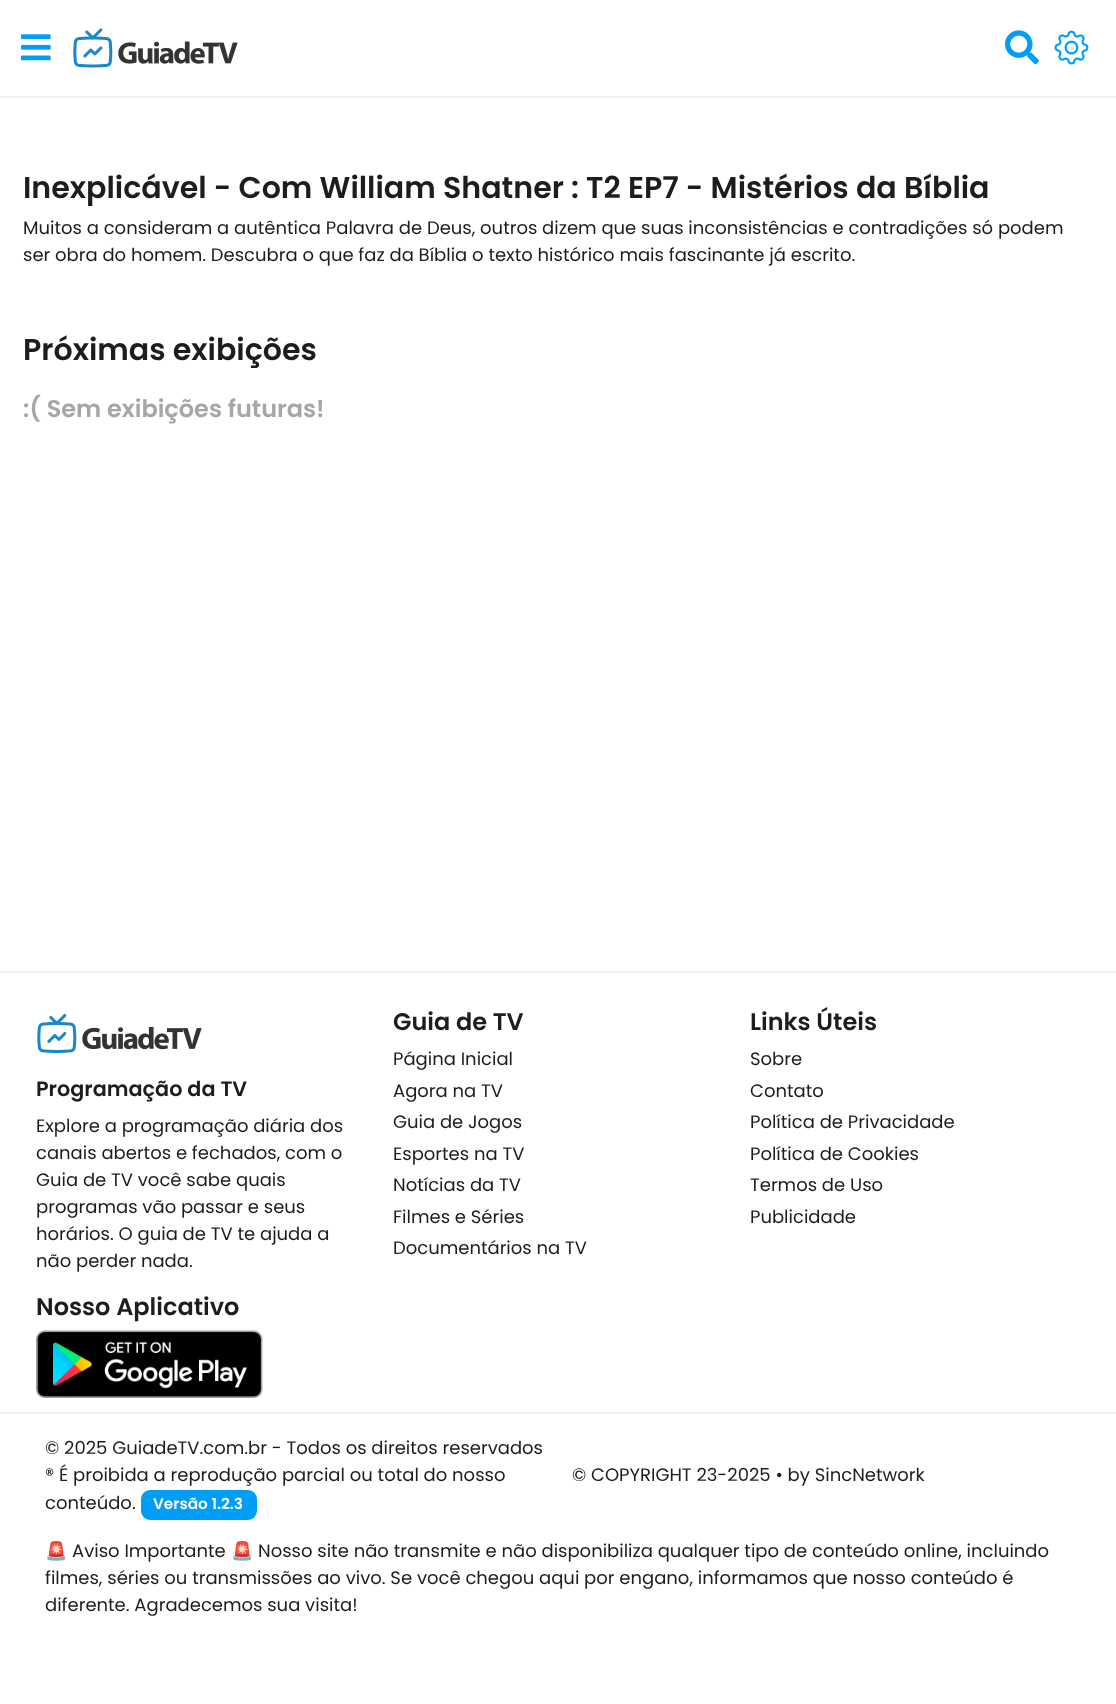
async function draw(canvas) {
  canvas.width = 1116
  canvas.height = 1704
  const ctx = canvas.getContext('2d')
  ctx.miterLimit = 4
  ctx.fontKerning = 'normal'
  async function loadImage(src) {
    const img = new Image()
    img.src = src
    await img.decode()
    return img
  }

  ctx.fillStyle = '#fff'
  ctx.fillRect(0, 0, 1116, 1704)
  ctx.fillStyle = '#eff2f5'
  ctx.fillRect(0, 96, 1116, 2)
  ctx.drawImage(await loadImage('image0.png'), 21, 34, 30, 27)
  ctx.drawImage(await loadImage('image1.png'), 73, 28, 165, 40)
  ctx.drawImage(await loadImage('image2.png'), 1005, 30, 34, 35)
  ctx.drawImage(await loadImage('image3.png'), 1054, 30, 35, 35)
  ctx.font = '600 30.1px Poppins'
  ctx.fillStyle = '#1f1c1c'
  ctx.fillText('Inexplicável - Com William Shatner : T2 EP7 - Mistérios da Bíblia', 23, 198)
  ctx.font = '18px Poppins'
  ctx.fillText('Muitos a consideram a autêntica Palavra de Deus, outros dizem que suas inconsistências e contradições só podem', 23, 234)
  ctx.fillText('ser obra do homem. Descubra o que faz da Bíblia o texto histórico mais fascinante já escrito.', 23, 261)
  ctx.font = '600 30.1px Poppins'
  ctx.fillText('Próximas exibições', 23, 360)
  ctx.font = '600 24px Poppins'
  ctx.fillStyle = '#a6a6a6'
  ctx.fillText(':( Sem exibições futuras!', 23, 417)
  ctx.fillStyle = '#eff2f5'
  ctx.fillRect(0, 971, 1116, 2)
  ctx.drawImage(await loadImage('image4.png'), 37, 1013, 165, 40)
  ctx.font = '600 20.75px Poppins'
  ctx.fillStyle = '#1f1c1c'
  ctx.fillText('Programação da TV', 36, 1096)
  ctx.font = '18px Poppins'
  ctx.fillText('Explore a programação diária dos', 36, 1132)
  ctx.fillText('canais abertos e fechados, com o', 36, 1159)
  ctx.fillText('Guia de TV você sabe quais', 36, 1186)
  ctx.fillText('programas vão passar e seus', 36, 1213)
  ctx.fillText('horários. O guia de TV te ajuda a', 36, 1240)
  ctx.fillText('não perder nada.', 36, 1267)
  ctx.font = '600 24px Poppins'
  ctx.fillText('Nosso Aplicativo', 36, 1315)
  ctx.drawImage(await loadImage('image5.png'), 36, 1330, 227, 68)
  ctx.fillText('Guia de TV', 393, 1030)
  ctx.font = '18px Poppins'
  ctx.fillText('Página Inicial', 393, 1065)
  ctx.fillText('Agora na TV', 393, 1097)
  ctx.fillText('Guia de Jogos', 393, 1128)
  ctx.fillText('Esportes na TV', 393, 1160)
  ctx.fillText('Notícias da TV', 393, 1191)
  ctx.fillText('Filmes e Séries', 393, 1223)
  ctx.fillText('Documentários na TV', 393, 1254)
  ctx.font = '600 24px Poppins'
  ctx.fillText('Links Úteis', 750, 1030)
  ctx.font = '18px Poppins'
  ctx.fillText('Sobre', 750, 1065)
  ctx.fillText('Contato', 750, 1097)
  ctx.fillText('Política de Privacidade', 750, 1128)
  ctx.fillText('Política de Cookies', 750, 1160)
  ctx.fillText('Termos de Uso', 750, 1191)
  ctx.fillText('Publicidade', 750, 1223)
  ctx.fillStyle = '#eff2f5'
  ctx.fillRect(0, 1412, 1116, 2)
  ctx.fillStyle = '#1f1c1c'
  ctx.fillText('© 2025 GuiadeTV.com.br - Todos os direitos reservados', 45, 1454)
  ctx.fillText('® É proibida a reprodução parcial ou total do nosso', 45, 1481)
  ctx.fillText('conteúdo.', 45, 1509)
  ctx.fillStyle = '#009ef7'
  ctx.beginPath()
  ctx.roundRect(141, 1490, 116, 30, 9)
  ctx.fill()
  ctx.font = '600 15.25px Poppins'
  ctx.fillStyle = '#fff'
  ctx.fillText('Versão 1.2.3', 153, 1509)
  ctx.font = '18px Poppins'
  ctx.fillStyle = '#1f1c1c'
  ctx.fillText('© COPYRIGHT 23-2025 • by SincNetwork', 572, 1481)
  ctx.font = '18px Noto Color Emoji'
  ctx.fillText('🚨', 45, 1557)
  ctx.font = '18px Poppins'
  ctx.fillText('Aviso Importante', 72, 1557)
  ctx.font = '18px Noto Color Emoji'
  ctx.fillText('🚨', 231, 1557)
  ctx.font = '18px Poppins'
  ctx.fillText('Nosso site não transmite e não disponibiliza qualquer tipo de conteúdo online, incluindo', 258, 1557)
  ctx.fillText('filmes, séries ou transmissões ao vivo. Se você chegou aqui por engano, informamos que nosso conteúdo é', 45, 1584)
  ctx.fillText('diferente. Agradecemos sua visita!', 45, 1611)
}

draw(document.querySelector('canvas'))
